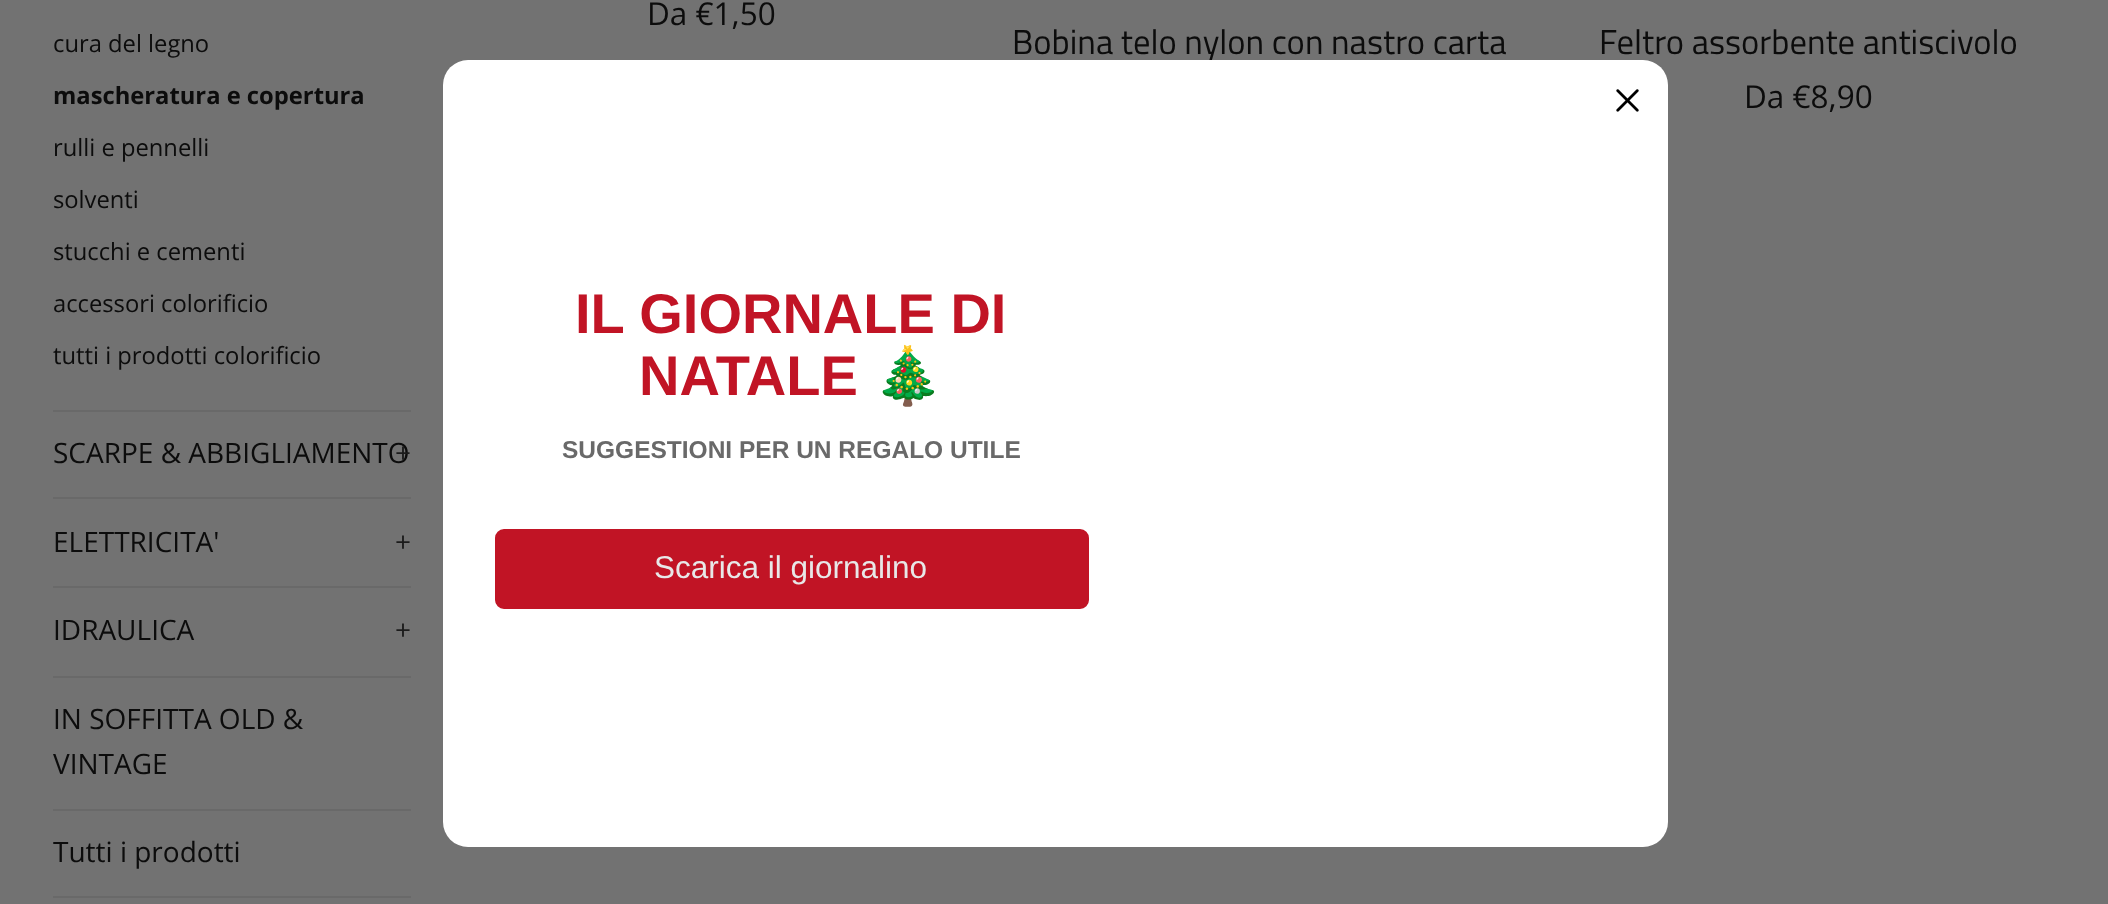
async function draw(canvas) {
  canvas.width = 2108
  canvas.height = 904
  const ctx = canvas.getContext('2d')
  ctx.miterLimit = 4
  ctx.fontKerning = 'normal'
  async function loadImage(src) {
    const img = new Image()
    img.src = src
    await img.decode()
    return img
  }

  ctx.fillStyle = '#727272'
  ctx.fillRect(0, 0, 2108, 904)
  ctx.fillStyle = '#696969'
  ctx.fillRect(53, 410, 358, 2)
  ctx.font = '23.75px Open Sans'
  ctx.fillStyle = '#0c0c0c'
  ctx.fillText('cura del legno', 53, 52)
  ctx.font = 'bold 23.75px Open Sans'
  ctx.fillText('mascheratura e copertura', 53, 104)
  ctx.font = '23.75px Open Sans'
  ctx.fillText('rulli e pennelli', 53, 156)
  ctx.fillText('solventi', 53, 208)
  ctx.fillText('stucchi e cementi', 53, 260)
  ctx.fillText('accessori colorificio', 53, 312)
  ctx.fillText('tutti i prodotti colorificio', 53, 364)
  ctx.fillStyle = '#696969'
  ctx.fillRect(53, 497, 358, 2)
  ctx.font = '28px Open Sans'
  ctx.fillStyle = '#0c0c0c'
  ctx.fillText('SCARPE & ABBIGLIAMENTO', 53, 463)
  ctx.fillStyle = '#1b1b1b'
  ctx.fillText('+', 395, 463)
  ctx.fillStyle = '#696969'
  ctx.fillRect(53, 586, 358, 2)
  ctx.fillStyle = '#0c0c0c'
  ctx.fillText('ELETTRICITA\'', 53, 552)
  ctx.fillStyle = '#1b1b1b'
  ctx.fillText('+', 395, 552)
  ctx.fillStyle = '#696969'
  ctx.fillRect(53, 676, 358, 2)
  ctx.fillStyle = '#0c0c0c'
  ctx.fillText('IDRAULICA', 53, 640)
  ctx.fillStyle = '#1b1b1b'
  ctx.fillText('+', 395, 640)
  ctx.fillStyle = '#696969'
  ctx.fillRect(53, 809, 358, 2)
  ctx.fillStyle = '#0c0c0c'
  ctx.fillText('IN SOFFITTA OLD &', 53, 729)
  ctx.fillText('VINTAGE', 53, 774)
  ctx.fillStyle = '#696969'
  ctx.fillRect(53, 896, 358, 2)
  ctx.fillStyle = '#0c0c0c'
  ctx.fillText('Tutti i prodotti', 53, 862)
  ctx.font = '31.5px Open Sans'
  ctx.fillText('Da €1,50', 647, 25)
  ctx.font = '34.6px Titillium Web'
  ctx.fillText('Bobina telo nylon con nastro carta', 1012, 54)
  ctx.fillText('Feltro assorbente antiscivolo', 1599, 54)
  ctx.font = '31.5px Open Sans'
  ctx.fillText('Da €8,90', 1744, 108)
  ctx.fillStyle = '#fff'
  ctx.beginPath()
  ctx.roundRect(443, 60, 1225, 787, 25)
  ctx.fill()
  ctx.drawImage(await loadImage('image0.png'), 1616, 89, 23, 23)
  ctx.font = 'bold 56px Liberation Sans'
  ctx.fillStyle = '#c11425'
  ctx.fillText('IL GIORNALE DI', 575, 333)
  ctx.fillText('NATALE', 639, 395)
  ctx.font = 'bold 56px Noto Color Emoji'
  ctx.fillText('🎄', 873, 395)
  ctx.font = 'bold 24.5px Liberation Sans'
  ctx.fillStyle = '#696969'
  ctx.fillText('SUGGESTIONI PER UN REGALO UTILE', 562, 458)
  ctx.fillStyle = '#c11425'
  ctx.beginPath()
  ctx.roundRect(497, 531, 590, 76, 7)
  ctx.fill()
  ctx.strokeStyle = '#c11425'
  ctx.lineWidth = 4
  ctx.stroke()
  ctx.font = '31.5px Liberation Sans'
  ctx.fillStyle = '#e8e8e8'
  ctx.fillText('Scarica il giornalino', 654, 578)
}

draw(document.querySelector('canvas'))
